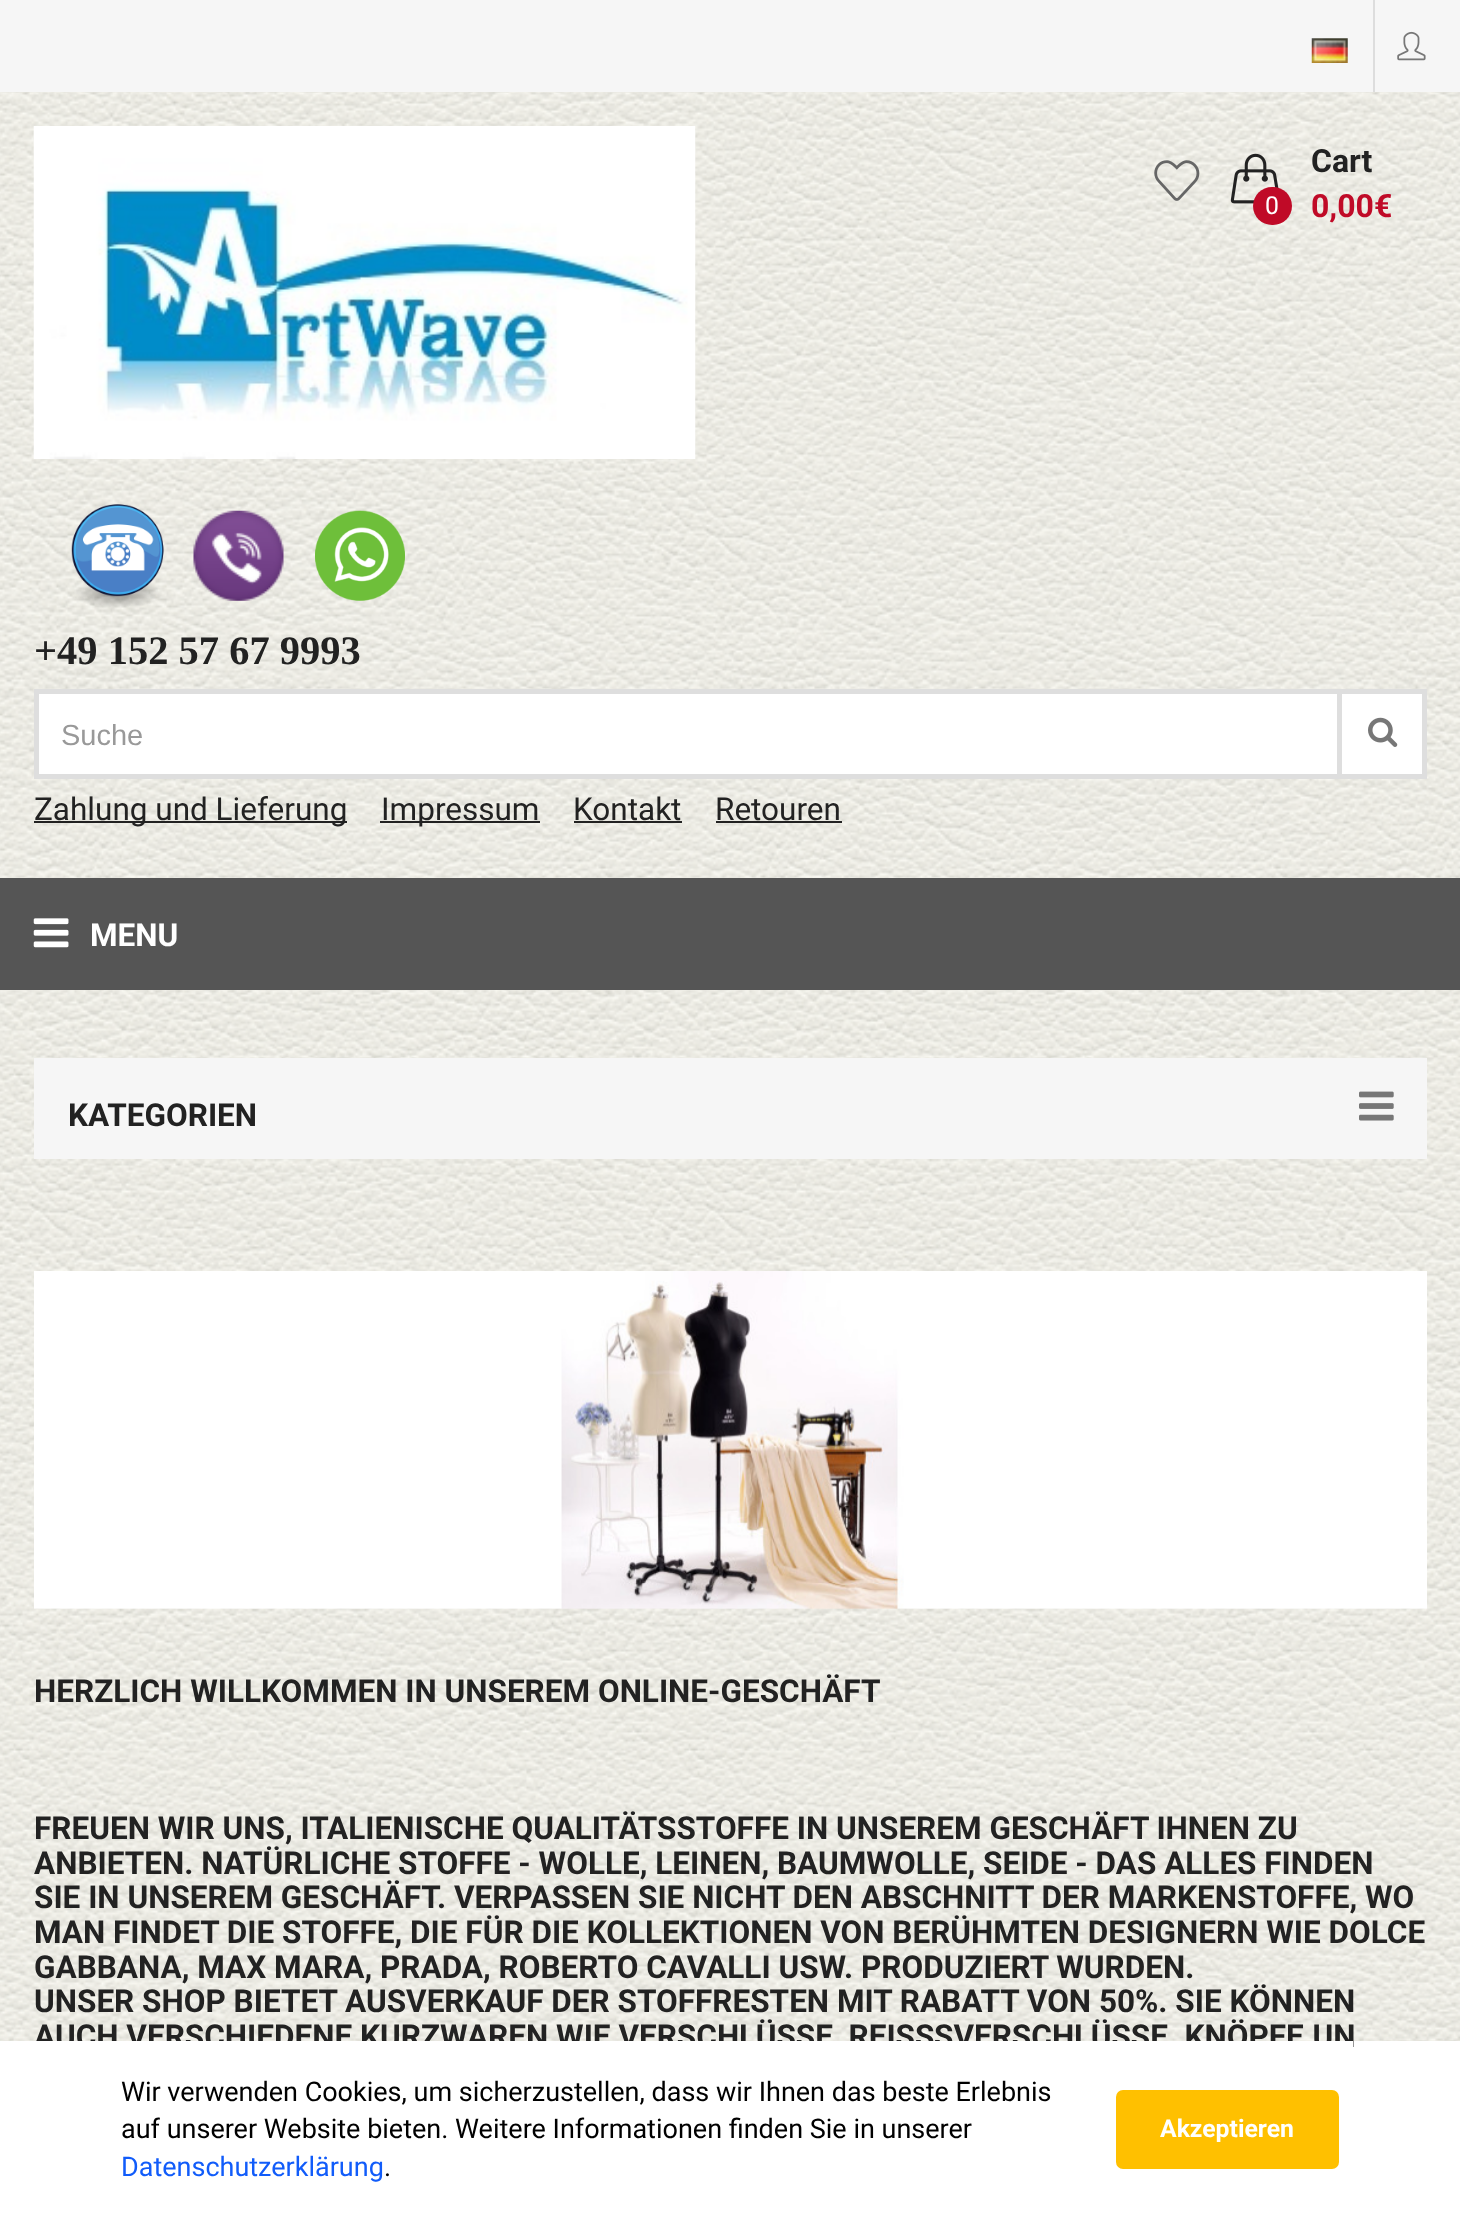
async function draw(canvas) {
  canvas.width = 1460
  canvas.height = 2220
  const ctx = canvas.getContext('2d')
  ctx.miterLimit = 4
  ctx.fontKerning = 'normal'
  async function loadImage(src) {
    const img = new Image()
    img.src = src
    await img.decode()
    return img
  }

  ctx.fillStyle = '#fff'
  ctx.fillRect(0, 0, 1460, 2220)
  ctx.drawImage(await loadImage('image0.png'), 0, 990, 1460, 1051)
  ctx.drawImage(await loadImage('image1.png'), 0, 92, 1460, 786)
  ctx.fillStyle = '#f6f6f6'
  ctx.fillRect(0, 0, 1460, 92)
  ctx.drawImage(await loadImage('image2.png'), 1311, 38, 37, 25)
  ctx.fillStyle = '#ddd'
  ctx.fillRect(1373, 0, 2, 92)
  ctx.drawImage(await loadImage('image3.png'), 1397, 31, 29, 30)
  ctx.drawImage(await loadImage('image4.png'), 33, 126, 663, 333)
  ctx.drawImage(await loadImage('image5.png'), 1154, 160, 46, 41)
  ctx.drawImage(await loadImage('image6.png'), 1230, 153, 49, 51)
  ctx.font = 'bold 32px Roboto'
  ctx.fillStyle = '#222'
  ctx.fillText('Cart', 1311, 172)
  ctx.fillStyle = '#c00a27'
  ctx.beginPath()
  ctx.roundRect(1253, 187, 39, 38, 19)
  ctx.fill()
  ctx.font = '24.75px Roboto'
  ctx.fillStyle = '#fff'
  ctx.fillText('0', 1265, 214)
  ctx.font = 'bold 32px Roboto'
  ctx.fillStyle = '#c00a27'
  ctx.fillText('0,00€', 1311, 217)
  ctx.drawImage(await loadImage('image7.png'), 71, 504, 93, 104)
  ctx.drawImage(await loadImage('image8.png'), 193, 510, 91, 91)
  ctx.drawImage(await loadImage('image9.png'), 315, 510, 90, 91)
  ctx.font = 'bold 40.5px Liberation Serif'
  ctx.fillStyle = '#222'
  ctx.fillText('+49 152 57 67 9993', 34, 664)
  ctx.fillStyle = '#fff'
  ctx.beginPath()
  ctx.rect(36.5, 691.5, 1388, 85)
  ctx.fill()
  ctx.strokeStyle = '#dedede'
  ctx.lineWidth = 5
  ctx.stroke()
  ctx.font = '29px Liberation Sans'
  ctx.fillStyle = '#999'
  ctx.fillText('Suche', 61, 745)
  ctx.fillStyle = '#fff'
  ctx.beginPath()
  ctx.rect(1339.5, 691.5, 85, 85)
  ctx.fill()
  ctx.stroke()
  ctx.drawImage(await loadImage('image10.png'), 1368, 717, 30, 30)
  ctx.fillStyle = '#222'
  ctx.fillRect(34, 821, 313, 2)
  ctx.font = '31.5px Roboto'
  ctx.fillText('Zahlung und Lieferung', 34, 820)
  ctx.fillRect(380, 821, 160, 2)
  ctx.fillText('Impressum', 381, 820)
  ctx.fillText('Kontakt', 573, 820)
  ctx.fillRect(574, 821, 108, 2)
  ctx.fillText('Retouren', 715, 820)
  ctx.fillRect(716, 821, 126, 2)
  ctx.fillStyle = '#555'
  ctx.fillRect(0, 878, 1460, 112)
  ctx.drawImage(await loadImage('image11.png'), 33, 918, 36, 30)
  ctx.font = 'bold 31.5px Roboto'
  ctx.fillStyle = '#fff'
  ctx.fillText('MENU', 90, 946)
  ctx.fillStyle = '#f6f6f6'
  ctx.fillRect(34, 1058, 1393, 101)
  ctx.fillStyle = '#222'
  ctx.fillText('KATEGORIEN', 68, 1126)
  ctx.drawImage(await loadImage('image12.png'), 1359, 1091, 35, 30)
  ctx.drawImage(await loadImage('image13.png'), 34, 1271, 1393, 338)
  ctx.fillText('HERZLICH WILLKOMMEN IN UNSEREM ONLINE-GESCHÄFT', 34, 1702)
  ctx.fillText('FREUEN WIR UNS, ITALIENISCHE QUALITÄTSSTOFFE IN UNSEREM GESCHÄFT IHNEN ZU', 34, 1839)
  ctx.fillText('ANBIETEN. NATÜRLICHE STOFFE - WOLLE, LEINEN, BAUMWOLLE, SEIDE - DAS ALLES FINDEN', 34, 1874)
  ctx.fillText('SIE IN UNSEREM GESCHÄFT. VERPASSEN SIE NICHT DEN ABSCHNITT DER MARKENSTOFFE, WO', 34, 1908)
  ctx.fillText('MAN FINDET DIE STOFFE, DIE FÜR DIE KOLLEKTIONEN VON BERÜHMTEN DESIGNERN WIE DOLCE', 34, 1943)
  ctx.fillText('GABBANA, MAX MARA, PRADA, ROBERTO CAVALLI USW. PRODUZIERT WURDEN.', 34, 1978)
  ctx.fillText('UNSER SHOP BIETET AUSVERKAUF DER STOFFRESTEN MIT RABATT VON 50%. SIE KÖNNEN', 34, 2012)
  ctx.fillText('AUCH VERSCHIEDENE KURZWAREN WIE VERSCHLÜSSE, REISS', 34, 2047)
  ctx.wordSpacing = '1px'
  ctx.fillText('SVERSCHLÜSSE, KNÖPFE UN', 934, 2047)
  ctx.fillStyle = '#fff'
  ctx.fillRect(33, 2041, 1320, 12)
  ctx.wordSpacing = '0px'
  ctx.font = '27px Roboto'
  ctx.fillStyle = '#000'
  ctx.fillText('Wir verwenden Cookies, um sicherzustellen, dass wir Ihnen das beste Erlebnis', 121, 2101)
  ctx.fillText('auf unserer Website bieten. Weitere Informationen finden Sie in unserer', 121, 2138)
  ctx.fillStyle = '#115cfa'
  ctx.fillText('Datenschutzerklärung', 121, 2176)
  ctx.fillStyle = '#000'
  ctx.fillText('.', 384, 2176)
  ctx.fillStyle = '#ffc000'
  ctx.beginPath()
  ctx.roundRect(1116, 2090, 223, 79, 7)
  ctx.fill()
  ctx.font = 'bold 24.75px Roboto'
  ctx.fillStyle = '#fff'
  ctx.fillText('Akzeptieren', 1160, 2137)
}

draw(document.querySelector('canvas'))
